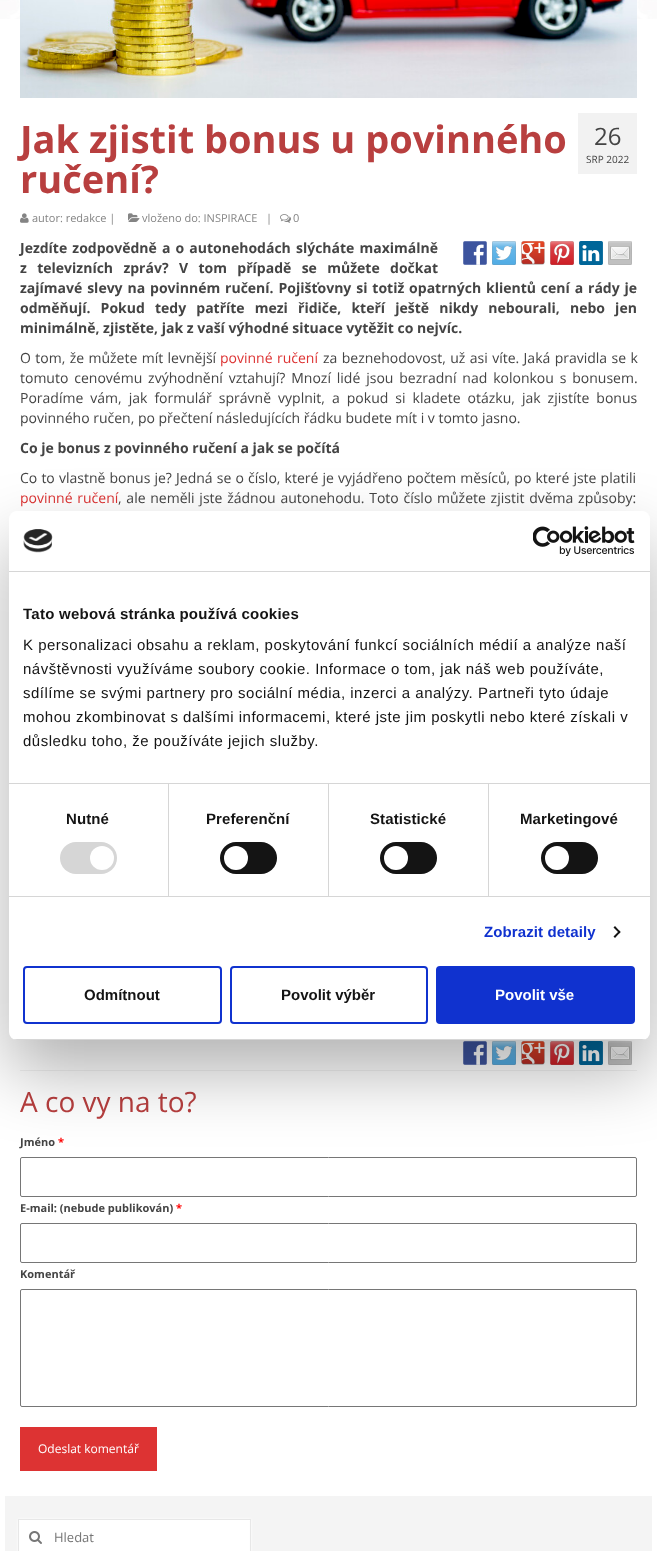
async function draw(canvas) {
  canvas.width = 657
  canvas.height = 1551
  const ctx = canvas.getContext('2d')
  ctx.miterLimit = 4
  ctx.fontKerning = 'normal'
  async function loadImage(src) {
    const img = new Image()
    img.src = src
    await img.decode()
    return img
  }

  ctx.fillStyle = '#fff'
  ctx.fillRect(0, 0, 657, 1551)
  ctx.drawImage(await loadImage('image0.png'), 0, 0, 657, 19)
  ctx.drawImage(await loadImage('image1.png'), 20, 0, 617, 98)
  ctx.font = 'bold 38px Open Sans'
  ctx.fillStyle = '#b83f3f'
  ctx.fillText('Jak zjistit bonus u povinného', 20, 153)
  ctx.fillText('ručení?', 20, 193)
  ctx.drawImage(await loadImage('image2.png'), 20, 213, 9, 10)
  ctx.font = '11px Open Sans'
  ctx.fillStyle = '#848484'
  ctx.fillText('autor: redakce |', 32, 222)
  ctx.drawImage(await loadImage('image3.png'), 128, 213, 12, 9)
  ctx.fillText('vloženo do: INSPIRACE', 142, 222)
  ctx.fillText('|', 266, 222)
  ctx.drawImage(await loadImage('image4.png'), 280, 214, 11, 9)
  ctx.fillText('0', 293, 222)
  ctx.fillStyle = '#f2f2f2'
  ctx.fillRect(578, 113, 59, 61)
  ctx.font = '24px Open Sans'
  ctx.fillStyle = '#444'
  ctx.fillText('26', 594, 145)
  ctx.font = '10px Open Sans'
  ctx.fillText('SRP 2022', 586, 163)
  ctx.drawImage(await loadImage('image5.png'), 463, 241, 24, 24)
  ctx.drawImage(await loadImage('image6.png'), 492, 241, 24, 24)
  ctx.drawImage(await loadImage('image7.png'), 521, 241, 24, 24)
  ctx.drawImage(await loadImage('image8.png'), 550, 241, 24, 24)
  ctx.drawImage(await loadImage('image9.png'), 579, 241, 24, 24)
  ctx.drawImage(await loadImage('image10.png'), 608, 241, 24, 24)
  ctx.wordSpacing = '1.5px'
  ctx.font = 'bold 14px Open Sans'
  ctx.fillText('Jezdíte zodpovědně a o autonehodách slýcháte maximálně', 20, 253)
  ctx.wordSpacing = '6.75px'
  ctx.fillText('z televizních zpráv? V tom případě se můžete dočkat', 20, 273)
  ctx.wordSpacing = '1.25px'
  ctx.fillText('zajímavé slevy na povinném ručení. Pojišťovny si totiž opatrných klientů cení a rády je', 20, 293)
  ctx.wordSpacing = '6.5px'
  ctx.fillText('odměňují. Pokud tedy patříte mezi řidiče, kteří ještě nikdy nebourali, nebo jen', 20, 313)
  ctx.wordSpacing = '0px'
  ctx.fillText('minimálně, zjistěte, jak z vaší výhodné situace vytěžit co nejvíc.', 20, 333)
  ctx.wordSpacing = '0.75px'
  ctx.font = '14px Open Sans'
  ctx.fillText('O tom, že můžete mít levnější', 20, 363)
  ctx.fillStyle = '#d33'
  ctx.fillText('povinné ručení', 220, 363)
  ctx.fillStyle = '#444'
  ctx.fillText('za beznehodovost, už asi víte. Jaká pravidla se k', 323, 363)
  ctx.wordSpacing = '2.25px'
  ctx.fillText('tomuto cenovému zvýhodnění vztahují? Mnozí lidé jsou bezradní nad kolonkou s bonusem.', 20, 383)
  ctx.wordSpacing = '3.4px'
  ctx.fillText('Poradíme vám, jak formulář správně vyplnit, a pokud si kladete otázku, jak zjistíte bonus', 20, 403)
  ctx.wordSpacing = '0px'
  ctx.fillText('povinného ručen, po přečtení následujících řádku budete mít i v tomto jasno.', 20, 423)
  ctx.font = 'bold 14px Open Sans'
  ctx.fillText('Co je bonus z povinného ručení a jak se počítá', 20, 453)
  ctx.wordSpacing = '0.5px'
  ctx.font = '14px Open Sans'
  ctx.fillText('Co to vlastně bonus je? Jedná se o číslo, které je vyjádřeno počtem měsíců, po které jste platili', 20, 483)
  ctx.wordSpacing = '1.1px'
  ctx.fillStyle = '#d33'
  ctx.fillText('povinné ručení', 20, 503)
  ctx.fillStyle = '#444'
  ctx.fillText(', ale neměli jste žádnou autonehodu. Toto číslo můžete zjistit dvěma způsoby:', 118, 503)
  ctx.drawImage(await loadImage('image5.png'), 463, 1041, 24, 24)
  ctx.drawImage(await loadImage('image6.png'), 492, 1041, 24, 24)
  ctx.drawImage(await loadImage('image7.png'), 521, 1041, 24, 24)
  ctx.drawImage(await loadImage('image8.png'), 550, 1041, 24, 24)
  ctx.drawImage(await loadImage('image9.png'), 579, 1041, 24, 24)
  ctx.drawImage(await loadImage('image10.png'), 608, 1041, 24, 24)
  ctx.fillStyle = '#f2f2f2'
  ctx.fillRect(20, 1070, 617, 1)
  ctx.wordSpacing = '0px'
  ctx.font = '28px Open Sans'
  ctx.fillStyle = '#b83f3f'
  ctx.fillText('A co vy na to?', 20, 1112)
  ctx.font = 'bold 11px Open Sans'
  ctx.fillStyle = '#444'
  ctx.fillText('Jméno', 20, 1146)
  ctx.fillStyle = '#f00'
  ctx.fillText('*', 58, 1146)
  ctx.beginPath()
  ctx.roundRect(20.5, 1157.5, 616, 39, 1.5)
  ctx.strokeStyle = '#767676'
  ctx.stroke()
  ctx.fillStyle = '#444'
  ctx.fillText('E-mail: (nebude publikován)', 20, 1212)
  ctx.fillStyle = '#f00'
  ctx.fillText('*', 176, 1212)
  ctx.beginPath()
  ctx.roundRect(20.5, 1223.5, 616, 39, 1.5)
  ctx.stroke()
  ctx.fillStyle = '#444'
  ctx.fillText('Komentář', 20, 1278)
  ctx.beginPath()
  ctx.roundRect(20.5, 1289.5, 616, 117, 1.5)
  ctx.stroke()
  ctx.fillStyle = '#d33'
  ctx.fillRect(20, 1427, 137, 44)
  ctx.font = '12px Open Sans'
  ctx.fillStyle = '#fff'
  ctx.fillText('Odeslat komentář', 38, 1453)
  ctx.fillStyle = '#f4f4f4'
  ctx.fillRect(5, 1496, 647, 55)
  ctx.fillStyle = '#fff'
  ctx.filter = 'blur(1.5px)'
  ctx.beginPath()
  ctx.rect(18, 1519, 233, 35)
  ctx.fill()
  ctx.filter = 'none'
  ctx.fillRect(19, 1520, 231, 1)
  ctx.strokeStyle = '#e7e7e7'
  ctx.strokeRect(18.5, 1519.5, 232, 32)
  ctx.drawImage(await loadImage('image11.png'), 29, 1531, 13, 13)
  ctx.font = '13px Open Sans'
  ctx.fillStyle = '#757575'
  ctx.fillText('Hledat', 54, 1542)
  ctx.fillStyle = '#0000004d'
  ctx.filter = 'blur(34px)'
  ctx.beginPath()
  ctx.roundRect(9, 543, 641, 529, 8)
  ctx.fill()
  ctx.filter = 'none'
  ctx.fillStyle = '#fff'
  ctx.beginPath()
  ctx.roundRect(9, 511, 641, 529, 8)
  ctx.fill()
  ctx.fillStyle = '#d6d6d6'
  ctx.fillRect(9, 571, 641, 1)
  ctx.drawImage(await loadImage('image12.png'), 23, 529, 30, 24)
  ctx.drawImage(await loadImage('image13.png'), 533, 526, 102, 30)
  ctx.fillRect(9, 783, 641, 1)
  ctx.letterSpacing = '0.25px'
  ctx.font = 'bold 15px Liberation Sans'
  ctx.fillStyle = '#141414'
  ctx.fillText('Tato webová stránka používá cookies', 23, 619)
  ctx.letterSpacing = '0.5px'
  ctx.font = '15px Liberation Sans'
  ctx.fillText('K personalizaci obsahu a reklam, poskytování funkcí sociálních médií a analýze naší', 23, 650)
  ctx.fillText('návštěvnosti využíváme soubory cookie. Informace o tom, jak náš web používáte,', 23, 674)
  ctx.fillText('sdílíme se svými partnery pro sociální média, inzerci a analýzy. Partneři tyto údaje', 23, 698)
  ctx.fillText('mohou zkombinovat s dalšími informacemi, které jste jim poskytli nebo které získali v', 23, 722)
  ctx.fillText('důsledku toho, že používáte jejich služby.', 23, 746)
  ctx.fillStyle = '#d6d6d6'
  ctx.fillRect(9, 896, 641, 1)
  ctx.fillRect(168, 784, 1, 112)
  ctx.letterSpacing = '0.1px'
  ctx.font = 'bold 15px Liberation Sans'
  ctx.fillStyle = '#141414'
  ctx.fillText('Nutné', 66, 824)
  ctx.fillStyle = '#d6d6d6'
  ctx.beginPath()
  ctx.roundRect(60, 842, 57, 32, 16)
  ctx.fill()
  ctx.fillStyle = '#fff'
  ctx.beginPath()
  ctx.arc(102, 858, 12, 0, 2 * Math.PI)
  ctx.fill()
  ctx.fillStyle = '#d6d6d6'
  ctx.fillRect(328, 784, 1, 112)
  ctx.fillStyle = '#141414'
  ctx.fillText('Preferenční', 206, 824)
  ctx.beginPath()
  ctx.roundRect(220, 842, 57, 32, 16)
  ctx.fill()
  ctx.fillStyle = '#fff'
  ctx.beginPath()
  ctx.arc(236, 858, 12, 0, 2 * Math.PI)
  ctx.fill()
  ctx.fillStyle = '#d6d6d6'
  ctx.fillRect(488, 784, 1, 112)
  ctx.fillStyle = '#141414'
  ctx.fillText('Statistické', 370, 824)
  ctx.beginPath()
  ctx.roundRect(380, 842, 57, 32, 16)
  ctx.fill()
  ctx.fillStyle = '#fff'
  ctx.beginPath()
  ctx.arc(396, 858, 12, 0, 2 * Math.PI)
  ctx.fill()
  ctx.fillStyle = '#141414'
  ctx.fillText('Marketingové', 520, 824)
  ctx.beginPath()
  ctx.roundRect(541, 842, 57, 32, 16)
  ctx.fill()
  ctx.fillStyle = '#fff'
  ctx.beginPath()
  ctx.arc(557, 858, 12, 0, 2 * Math.PI)
  ctx.fill()
  ctx.fillStyle = '#1032cf'
  ctx.fillText('Zobrazit detaily', 484, 937)
  ctx.fillStyle = '#141414'
  ctx.beginPath()
  ctx.moveTo(615, 926)
  ctx.lineTo(620.5, 932)
  ctx.lineTo(619.5, 933.5)
  ctx.lineTo(613.5, 927.5)
  ctx.closePath()
  ctx.fill()
  ctx.beginPath()
  ctx.moveTo(619.5, 930.5)
  ctx.lineTo(620.5, 932)
  ctx.lineTo(615, 938)
  ctx.lineTo(613.5, 936.5)
  ctx.closePath()
  ctx.fill()
  ctx.save()
  ctx.beginPath()
  ctx.roundRect(9, 511, 641, 529, 8)
  ctx.clip()
  ctx.fillStyle = '#d6d6d6'
  ctx.fillRect(9, 1039, 641, 1)
  ctx.restore()
  ctx.beginPath()
  ctx.roundRect(24, 967, 197, 56, 3)
  ctx.strokeStyle = '#1032cf'
  ctx.lineWidth = 2
  ctx.stroke()
  ctx.letterSpacing = '0px'
  ctx.fillText('Odmítnout', 84, 1000)
  ctx.beginPath()
  ctx.roundRect(231, 967, 196, 56, 3)
  ctx.stroke()
  ctx.fillText('Povolit výběr', 281, 1000)
  ctx.fillStyle = '#1032cf'
  ctx.beginPath()
  ctx.roundRect(437, 967, 197, 56, 3)
  ctx.fill()
  ctx.stroke()
  ctx.fillStyle = '#fff'
  ctx.fillText('Povolit vše', 495, 1000)
}

draw(document.querySelector('canvas'))
